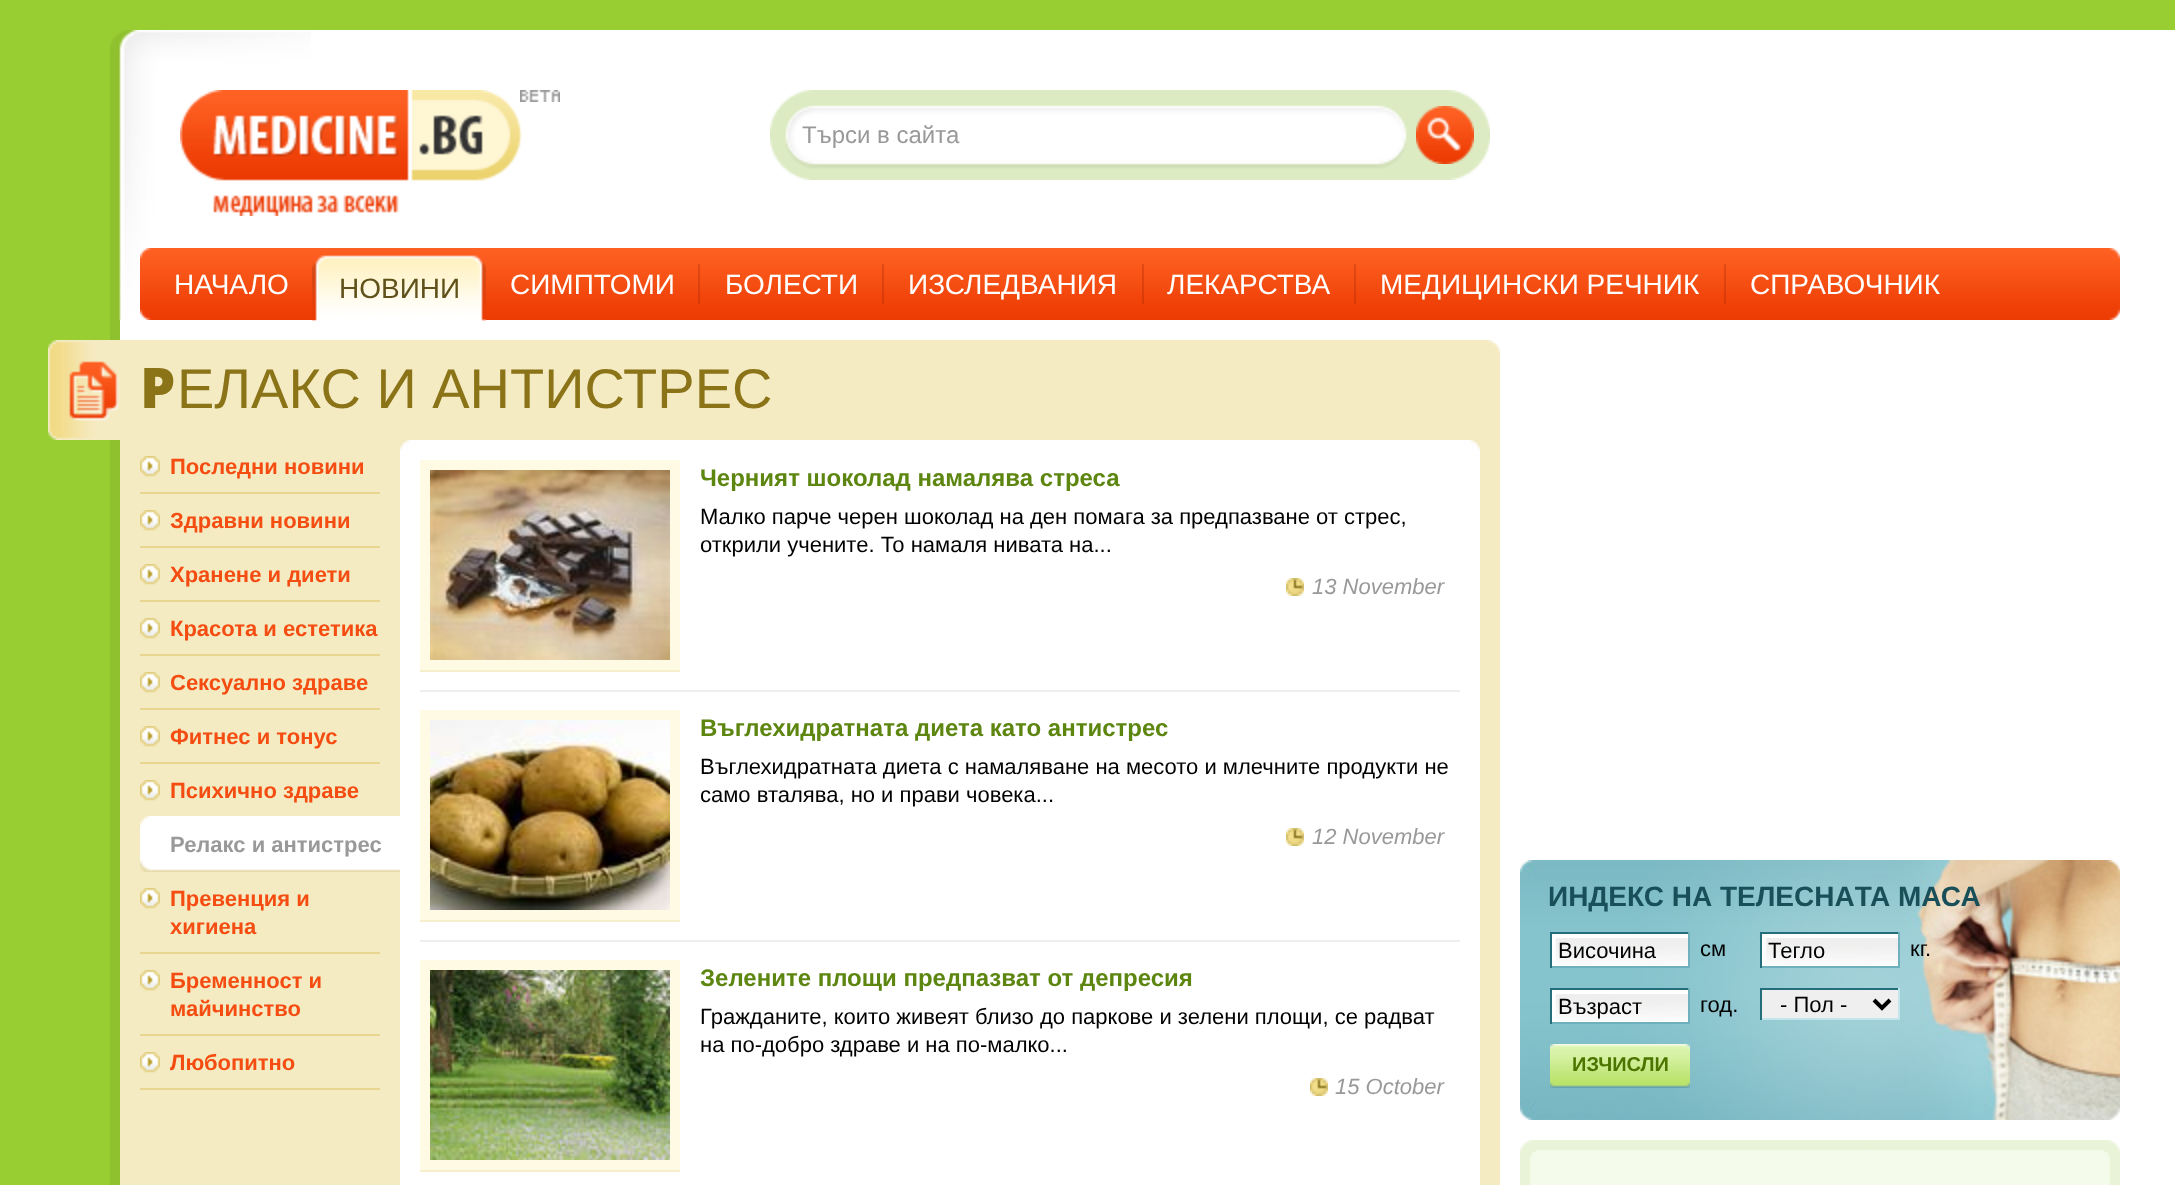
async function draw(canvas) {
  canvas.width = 2175
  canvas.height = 1185
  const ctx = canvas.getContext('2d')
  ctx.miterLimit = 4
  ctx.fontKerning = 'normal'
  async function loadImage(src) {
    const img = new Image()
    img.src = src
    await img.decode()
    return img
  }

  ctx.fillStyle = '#99ce32'
  ctx.fillRect(0, 0, 2175, 1185)
  ctx.fillStyle = '#8fc12e'
  ctx.fillRect(110, 320, 10, 865)
  ctx.fillStyle = '#fff'
  ctx.fillRect(120, 30, 2055, 1155)
  ctx.drawImage(await loadImage('image0.png'), 110, 30, 201, 290)
  ctx.drawImage(await loadImage('image1.png'), 180, 90, 342, 126)
  ctx.drawImage(await loadImage('image2.png'), 520, 90, 40, 12)
  ctx.drawImage(await loadImage('image3.png'), 770, 90, 720, 90)
  ctx.font = '24px Liberation Sans'
  ctx.fillStyle = '#999'
  ctx.fillText('Търси в сайта', 802, 143)
  ctx.drawImage(await loadImage('image4.png'), 1416, 106, 58, 58)
  ctx.drawImage(await loadImage('image5.png'), 140, 248, 1980, 72)
  ctx.font = '28px Liberation Sans'
  ctx.fillStyle = '#fff'
  ctx.fillText('НАЧАЛО', 174, 294)
  ctx.drawImage(await loadImage('image6.png'), 312, 255, 174, 66)
  ctx.drawImage(await loadImage('image7.png'), 326, 255, 160, 66)
  ctx.fillStyle = '#60511a'
  ctx.fillText('НОВИНИ', 339, 298)
  ctx.drawImage(await loadImage('image8.png'), 698, 264, 2, 40)
  ctx.fillStyle = '#fff'
  ctx.fillText('СИМПТОМИ', 510, 294)
  ctx.drawImage(await loadImage('image8.png'), 882, 264, 2, 40)
  ctx.fillText('БОЛЕСТИ', 725, 294)
  ctx.drawImage(await loadImage('image8.png'), 1142, 264, 2, 40)
  ctx.fillText('ИЗСЛЕДВАНИЯ', 908, 294)
  ctx.drawImage(await loadImage('image8.png'), 1354, 264, 2, 40)
  ctx.fillText('ЛЕКАРСТВА', 1167, 294)
  ctx.drawImage(await loadImage('image8.png'), 1724, 264, 2, 40)
  ctx.fillText('МЕДИЦИНСКИ РЕЧНИК', 1380, 294)
  ctx.fillText('СПРАВОЧНИК', 1750, 294)
  ctx.fillStyle = '#f5ebc3'
  ctx.fillRect(120, 340, 1380, 845)
  ctx.drawImage(await loadImage('image9.png'), 1488, 340, 12, 13)
  ctx.drawImage(await loadImage('image10.png'), 48, 340, 72, 100)
  ctx.font = '900 56px Noto Sans'
  ctx.fillStyle = '#8b7418'
  ctx.fillText('Р', 140, 408)
  ctx.font = '56px Liberation Sans'
  ctx.fillText('ЕЛАКС И АНТИСТРЕС', 177, 408)
  ctx.drawImage(await loadImage('image11.png'), 140, 456, 20, 21)
  ctx.fillStyle = '#e7d590'
  ctx.fillRect(140, 492, 240, 2)
  ctx.font = 'bold 22px Liberation Sans'
  ctx.fillStyle = '#f44c11'
  ctx.fillText('Последни новини', 170, 474)
  ctx.drawImage(await loadImage('image11.png'), 140, 510, 20, 21)
  ctx.fillStyle = '#e7d590'
  ctx.fillRect(140, 546, 240, 2)
  ctx.fillStyle = '#f44c11'
  ctx.fillText('Здравни новини', 170, 528)
  ctx.drawImage(await loadImage('image11.png'), 140, 564, 20, 21)
  ctx.fillStyle = '#e7d590'
  ctx.fillRect(140, 600, 240, 2)
  ctx.fillStyle = '#f44c11'
  ctx.fillText('Хранене и диети', 170, 582)
  ctx.drawImage(await loadImage('image11.png'), 140, 618, 20, 21)
  ctx.fillStyle = '#e7d590'
  ctx.fillRect(140, 654, 240, 2)
  ctx.fillStyle = '#f44c11'
  ctx.fillText('Красота и естетика', 170, 636)
  ctx.drawImage(await loadImage('image11.png'), 140, 672, 20, 21)
  ctx.fillStyle = '#e7d590'
  ctx.fillRect(140, 708, 240, 2)
  ctx.fillStyle = '#f44c11'
  ctx.fillText('Сексуално здраве', 170, 690)
  ctx.drawImage(await loadImage('image11.png'), 140, 726, 20, 21)
  ctx.fillStyle = '#e7d590'
  ctx.fillRect(140, 762, 240, 2)
  ctx.fillStyle = '#f44c11'
  ctx.fillText('Фитнес и тонус', 170, 744)
  ctx.drawImage(await loadImage('image11.png'), 140, 780, 20, 21)
  ctx.fillText('Психично здраве', 170, 798)
  ctx.drawImage(await loadImage('image12.png'), 140, 816, 260, 43)
  ctx.drawImage(await loadImage('image13.png'), 140, 859, 260, 13)
  ctx.fillStyle = '#999'
  ctx.fillText('Релакс и антистрес', 170, 852)
  ctx.drawImage(await loadImage('image11.png'), 140, 888, 20, 21)
  ctx.fillStyle = '#e7d590'
  ctx.fillRect(140, 952, 240, 2)
  ctx.fillStyle = '#f44c11'
  ctx.fillText('Превенция и', 170, 906)
  ctx.fillText('хигиена', 170, 934)
  ctx.drawImage(await loadImage('image11.png'), 140, 970, 20, 21)
  ctx.fillStyle = '#e7d590'
  ctx.fillRect(140, 1034, 240, 2)
  ctx.fillStyle = '#f44c11'
  ctx.fillText('Бременност и', 170, 988)
  ctx.fillText('майчинство', 170, 1016)
  ctx.drawImage(await loadImage('image11.png'), 140, 1052, 20, 21)
  ctx.fillStyle = '#e7d590'
  ctx.fillRect(140, 1088, 240, 2)
  ctx.fillStyle = '#f44c11'
  ctx.fillText('Любопитно', 170, 1070)
  ctx.fillStyle = '#fff'
  ctx.fillRect(400, 440, 1080, 745)
  ctx.drawImage(await loadImage('image14.png'), 400, 440, 10, 10)
  ctx.drawImage(await loadImage('image15.png'), 1470, 440, 10, 10)
  ctx.fillStyle = '#eee'
  ctx.fillRect(420, 690, 1040, 2)
  ctx.fillStyle = '#fffae4'
  ctx.fillRect(420, 460, 260, 210)
  ctx.fillStyle = '#f7eecc'
  ctx.fillRect(420, 670, 260, 2)
  ctx.drawImage(await loadImage('image16.png'), 430, 470, 240, 190)
  ctx.font = 'bold 24px Liberation Sans'
  ctx.fillStyle = '#5d8610'
  ctx.fillText('Черният шоколад намалява стреса', 700, 486)
  ctx.font = '22px Liberation Sans'
  ctx.fillStyle = '#000'
  ctx.fillText('Малко парче черен шоколад на ден помага за предпазване от стрес,', 700, 524)
  ctx.fillText('открили учените. То намаля нивата на...', 700, 552)
  ctx.drawImage(await loadImage('image17.png'), 1286, 578, 18, 18)
  ctx.font = 'italic 22px Liberation Sans'
  ctx.fillStyle = '#999'
  ctx.fillText('13 November', 1312, 594)
  ctx.fillStyle = '#eee'
  ctx.fillRect(420, 940, 1040, 2)
  ctx.fillStyle = '#fffae4'
  ctx.fillRect(420, 710, 260, 210)
  ctx.fillStyle = '#f7eecc'
  ctx.fillRect(420, 920, 260, 2)
  ctx.drawImage(await loadImage('image18.png'), 430, 720, 240, 190)
  ctx.font = 'bold 24px Liberation Sans'
  ctx.fillStyle = '#5d8610'
  ctx.fillText('Въглехидратната диета като антистрес', 700, 736)
  ctx.font = '22px Liberation Sans'
  ctx.fillStyle = '#000'
  ctx.fillText('Въглехидратната диета с намаляване на месото и млечните продукти не', 700, 774)
  ctx.fillText('само вталява, но и прави човека...', 700, 802)
  ctx.drawImage(await loadImage('image17.png'), 1286, 828, 18, 18)
  ctx.font = 'italic 22px Liberation Sans'
  ctx.fillStyle = '#999'
  ctx.fillText('12 November', 1312, 844)
  ctx.fillStyle = '#fffae4'
  ctx.fillRect(420, 960, 260, 210)
  ctx.fillStyle = '#f7eecc'
  ctx.fillRect(420, 1170, 260, 2)
  ctx.drawImage(await loadImage('image19.png'), 430, 970, 240, 190)
  ctx.font = 'bold 24px Liberation Sans'
  ctx.fillStyle = '#5d8610'
  ctx.fillText('Зелените площи предпазват от депресия', 700, 986)
  ctx.font = '22px Liberation Sans'
  ctx.fillStyle = '#000'
  ctx.fillText('Гражданите, които живеят близо до паркове и зелени площи, се радват', 700, 1024)
  ctx.fillText('на по-добро здраве и на по-малко...', 700, 1052)
  ctx.drawImage(await loadImage('image17.png'), 1310, 1078, 18, 18)
  ctx.font = 'italic 22px Liberation Sans'
  ctx.fillStyle = '#999'
  ctx.fillText('15 October', 1335, 1094)
  ctx.drawImage(await loadImage('image20.png'), 1520, 860, 600, 260)
  ctx.font = 'bold 28px Liberation Sans'
  ctx.fillStyle = '#194f59'
  ctx.fillText('ИНДЕКС НА ТЕЛЕСНAТА МАСА', 1548, 906)
  ctx.fillStyle = '#fff'
  ctx.fillRect(1552, 934, 136, 32)
  ctx.drawImage(await loadImage('image21.png'), 1555, 938, 133, 27)
  ctx.fillStyle = '#246d7b'
  ctx.fillRect(1550, 932, 140, 2)
  ctx.fillStyle = '#6eb1bd'
  ctx.fillRect(1688, 932, 2, 36)
  ctx.fillRect(1550, 966, 140, 2)
  ctx.fillStyle = '#246d7b'
  ctx.fillRect(1550, 932, 2, 36)
  ctx.font = '22px Liberation Sans'
  ctx.fillStyle = '#000'
  ctx.fillText('Височина', 1558, 958)
  ctx.fillText('см', 1700, 956)
  ctx.fillStyle = '#fff'
  ctx.fillRect(1762, 934, 136, 32)
  ctx.drawImage(await loadImage('image21.png'), 1765, 938, 133, 27)
  ctx.fillStyle = '#246d7b'
  ctx.fillRect(1760, 932, 140, 2)
  ctx.fillStyle = '#6eb1bd'
  ctx.fillRect(1898, 932, 2, 36)
  ctx.fillRect(1760, 966, 140, 2)
  ctx.fillStyle = '#246d7b'
  ctx.fillRect(1760, 932, 2, 36)
  ctx.fillStyle = '#000'
  ctx.fillText('Тегло', 1768, 958)
  ctx.fillText('кг.', 1910, 956)
  ctx.fillStyle = '#fff'
  ctx.fillRect(1552, 990, 136, 32)
  ctx.drawImage(await loadImage('image21.png'), 1555, 994, 133, 27)
  ctx.fillStyle = '#246d7b'
  ctx.fillRect(1550, 988, 140, 2)
  ctx.fillStyle = '#6eb1bd'
  ctx.fillRect(1688, 988, 2, 36)
  ctx.fillRect(1550, 1022, 140, 2)
  ctx.fillStyle = '#246d7b'
  ctx.fillRect(1550, 988, 2, 36)
  ctx.fillStyle = '#000'
  ctx.fillText('Възраст', 1558, 1014)
  ctx.fillText('год.', 1700, 1012)
  ctx.fillStyle = '#efefef'
  ctx.fillRect(1762, 990, 136, 28)
  ctx.fillStyle = '#246d7b'
  ctx.fillRect(1760, 988, 140, 2)
  ctx.fillStyle = '#c3e6ec'
  ctx.fillRect(1898, 988, 2, 32)
  ctx.fillRect(1760, 1018, 140, 2)
  ctx.fillStyle = '#246d7b'
  ctx.fillRect(1760, 988, 2, 32)
  ctx.beginPath()
  ctx.moveTo(1874, 1000)
  ctx.lineTo(1882, 1008)
  ctx.lineTo(1890, 1000)
  ctx.strokeStyle = '#000'
  ctx.lineWidth = 4
  ctx.stroke()
  ctx.fillStyle = '#000'
  ctx.fillText('- Пол -', 1780, 1012)
  ctx.drawImage(await loadImage('image22.png'), 1550, 1044, 140, 44)
  ctx.font = 'bold 20px Liberation Sans'
  ctx.fillStyle = '#4c7500'
  ctx.fillText('ИЗЧИСЛИ', 1572, 1071)
  ctx.drawImage(await loadImage('image23.png'), 1520, 1140, 600, 45)
}

draw(document.querySelector('canvas'))
